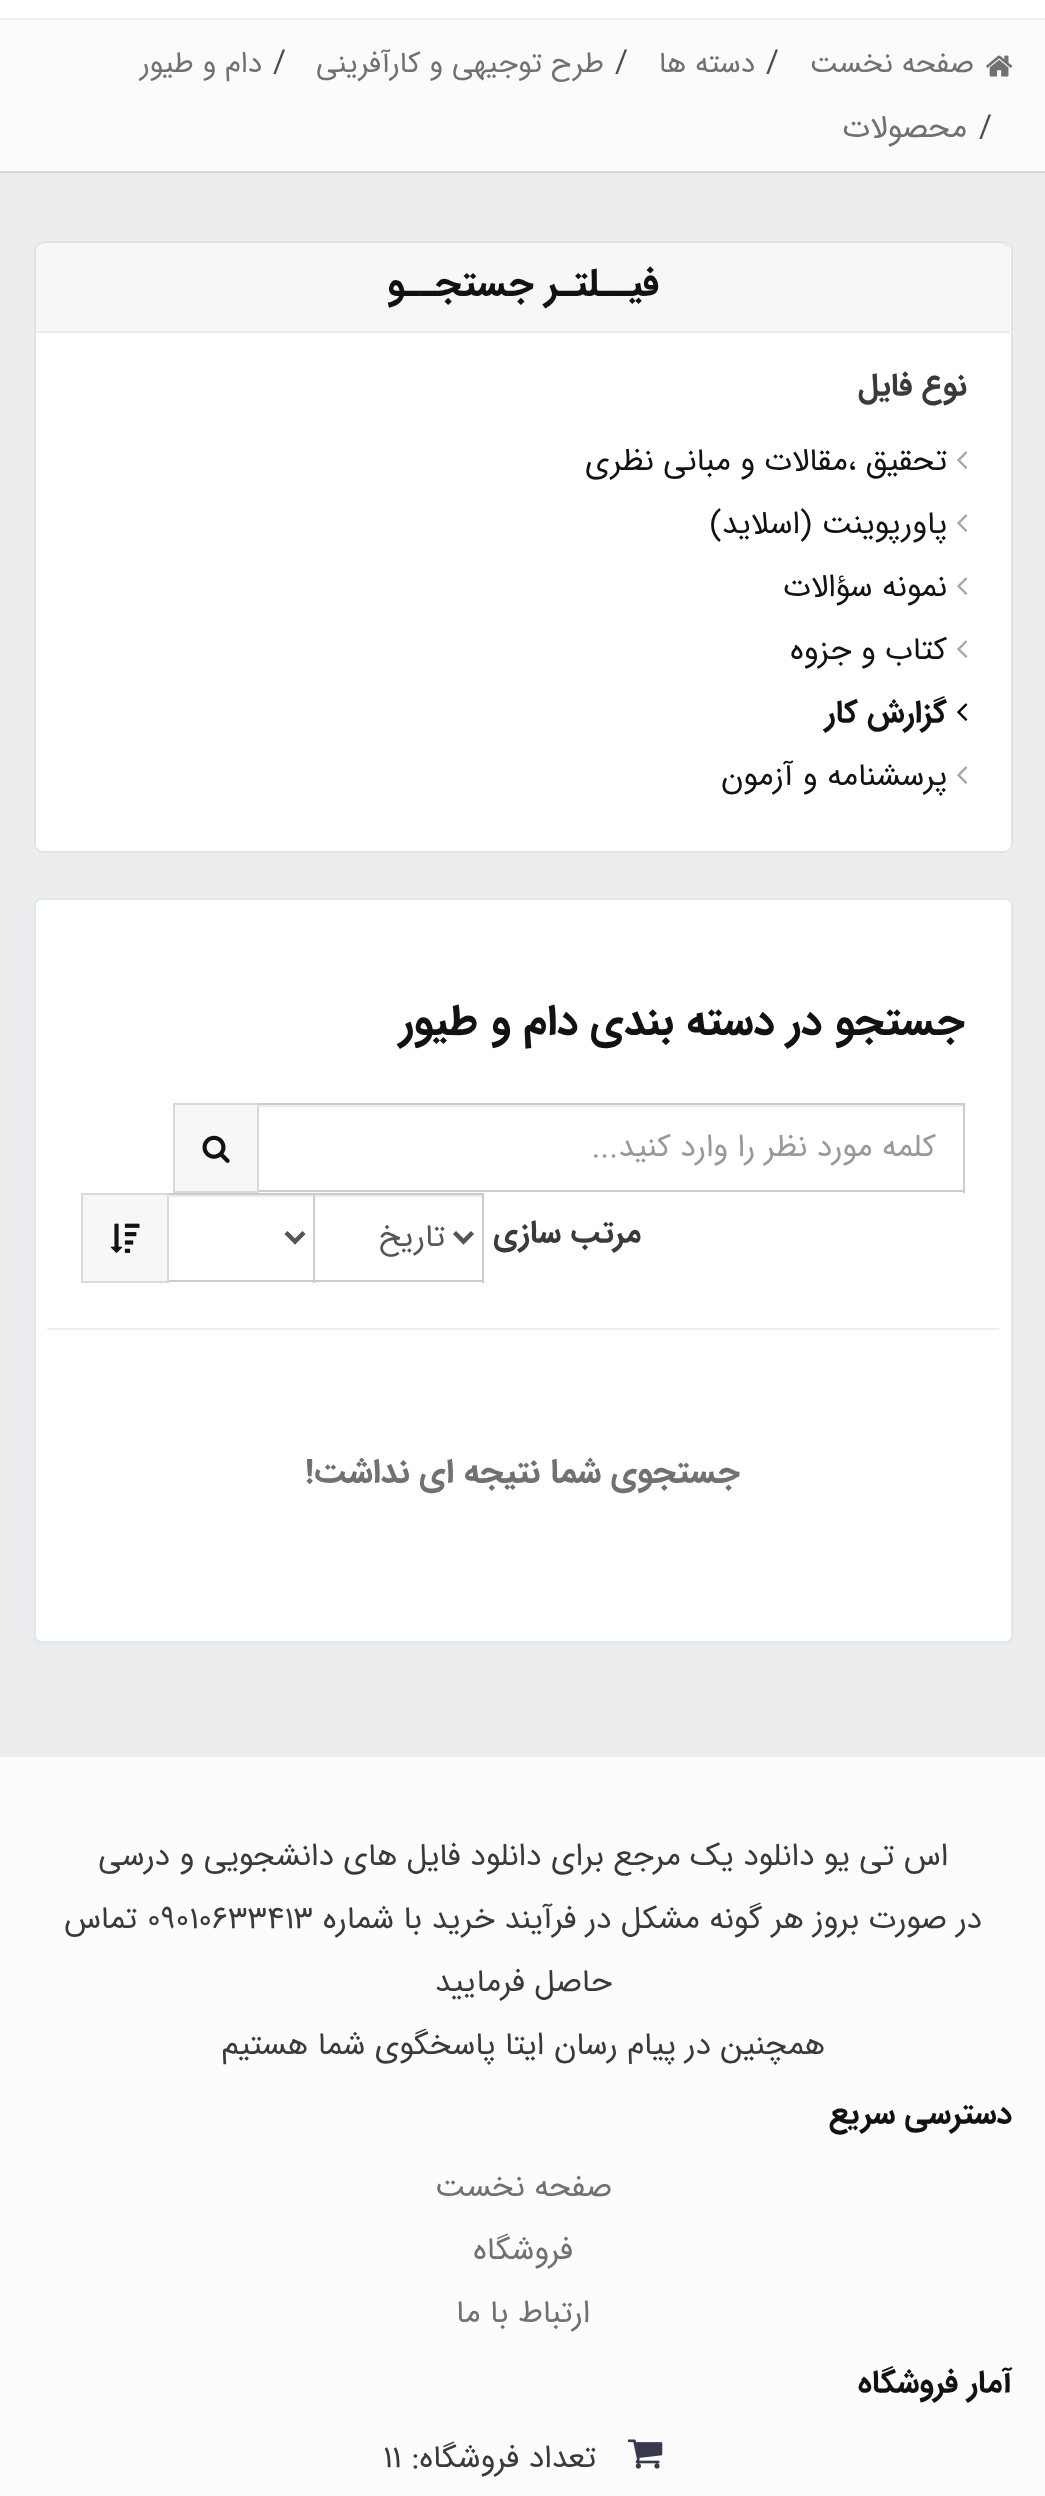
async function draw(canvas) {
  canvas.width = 1045
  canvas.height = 2496
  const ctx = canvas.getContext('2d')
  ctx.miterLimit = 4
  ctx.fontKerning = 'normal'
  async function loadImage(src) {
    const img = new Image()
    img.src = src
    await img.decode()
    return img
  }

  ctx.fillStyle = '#fff'
  ctx.fillRect(0, 0, 1045, 2496)
  ctx.fillStyle = '#efefef'
  ctx.fillRect(0, 18, 1045, 2)
  ctx.fillStyle = '#fbfbfb'
  ctx.fillRect(0, 20, 1045, 151)
  ctx.fillStyle = '#d8d8d8'
  ctx.fillRect(0, 171, 1045, 2)
  ctx.drawImage(await loadImage('image0.png'), 986, 55, 27, 22)
  ctx.direction = 'rtl'
  ctx.font = '29.25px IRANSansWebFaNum'
  ctx.fillStyle = '#717171'
  ctx.fillText('صفحه نخست', 974, 72)
  ctx.direction = 'ltr'
  ctx.font = '31.5px IRANSansWebFaNum'
  ctx.fillStyle = '#4c4c4c'
  ctx.fillText('/', 766, 72)
  ctx.direction = 'rtl'
  ctx.font = '29.25px IRANSansWebFaNum'
  ctx.fillStyle = '#717171'
  ctx.fillText('دسته ها', 755, 72)
  ctx.direction = 'ltr'
  ctx.font = '31.5px IRANSansWebFaNum'
  ctx.fillStyle = '#4c4c4c'
  ctx.fillText('/', 615, 72)
  ctx.direction = 'rtl'
  ctx.font = '29.25px IRANSansWebFaNum'
  ctx.fillStyle = '#717171'
  ctx.fillText('طرح توجیهی و کارآفرینی', 604, 72)
  ctx.direction = 'ltr'
  ctx.font = '31.5px IRANSansWebFaNum'
  ctx.fillStyle = '#4c4c4c'
  ctx.fillText('/', 273, 72)
  ctx.direction = 'rtl'
  ctx.font = '29.25px IRANSansWebFaNum'
  ctx.fillStyle = '#717171'
  ctx.fillText('دام و طیور', 262, 72)
  ctx.direction = 'ltr'
  ctx.font = '31.5px IRANSansWebFaNum'
  ctx.fillStyle = '#4c4c4c'
  ctx.fillText('/', 979, 137)
  ctx.direction = 'rtl'
  ctx.fillStyle = '#717171'
  ctx.fillText('محصولات', 967, 137)
  ctx.fillStyle = '#ebedef'
  ctx.fillRect(0, 173, 1045, 1582)
  ctx.fillStyle = '#fff'
  ctx.beginPath()
  ctx.roundRect(34, 241, 979, 612, 9)
  ctx.fill()
  ctx.fillStyle = '#f2f2f2'
  ctx.beginPath()
  ctx.moveTo(43, 245)
  ctx.lineTo(1004, 245)
  ctx.bezierCurveTo(1007, 245, 1010, 248, 1010, 252)
  ctx.lineTo(1010, 250)
  ctx.bezierCurveTo(1010, 246, 1007, 243, 1003, 243)
  ctx.lineTo(43, 243)
  ctx.bezierCurveTo(39, 243, 36, 246, 36, 250)
  ctx.lineTo(36, 252)
  ctx.bezierCurveTo(36, 248, 39, 245, 43, 245)
  ctx.closePath()
  ctx.fill()
  ctx.beginPath()
  ctx.roundRect(35, 242, 977, 610, 8)
  ctx.strokeStyle = '#e3e3e3'
  ctx.lineWidth = 2
  ctx.stroke()
  ctx.fillStyle = '#f7f7f7'
  ctx.beginPath()
  ctx.roundRect(36, 241, 974, 92, [11, 11, 0, 0])
  ctx.fill()
  ctx.fillStyle = '#e2e2e2'
  ctx.beginPath()
  ctx.moveTo(47, 241)
  ctx.bezierCurveTo(41, 241, 36, 246, 36, 252)
  ctx.bezierCurveTo(36, 247, 41, 243, 47, 243)
  ctx.lineTo(999, 243)
  ctx.bezierCurveTo(1005, 243, 1010, 247, 1010, 252)
  ctx.bezierCurveTo(1010, 246, 1005, 241, 999, 241)
  ctx.closePath()
  ctx.fill()
  ctx.fillStyle = '#ececec'
  ctx.fillRect(36, 331, 974, 2)
  ctx.font = 'bold 38.25px IRANSansWebFaNum'
  ctx.fillStyle = '#121212'
  ctx.fillText('فیــلتـر جستجــو', 659, 295)
  ctx.font = 'bold 31.5px IRANSansWebFaNum'
  ctx.fillStyle = '#3a3a3a'
  ctx.fillText('نوع فایل', 967, 395)
  ctx.drawImage(await loadImage('image1.png'), 957, 451, 11, 18)
  ctx.font = '31.5px IRANSansWebFaNum'
  ctx.fillStyle = '#121212'
  ctx.fillText('تحقیق ،مقالات و مبانی نظری', 947, 470)
  ctx.drawImage(await loadImage('image1.png'), 957, 514, 11, 18)
  ctx.fillText('پاورپوینت (اسلاید)', 947, 533)
  ctx.drawImage(await loadImage('image1.png'), 957, 577, 11, 18)
  ctx.fillText('نمونه سؤالات', 947, 596)
  ctx.drawImage(await loadImage('image1.png'), 957, 640, 11, 18)
  ctx.fillText('کتاب و جزوه', 947, 659)
  ctx.drawImage(await loadImage('image2.png'), 957, 703, 11, 18)
  ctx.font = 'bold 31.5px IRANSansWebFaNum'
  ctx.fillText('گزارش کار', 947, 722)
  ctx.drawImage(await loadImage('image1.png'), 957, 766, 11, 18)
  ctx.font = '31.5px IRANSansWebFaNum'
  ctx.fillText('پرسشنامه و آزمون', 947, 785)
  ctx.fillStyle = '#e1e8ed'
  ctx.filter = 'blur(1px)'
  ctx.beginPath()
  ctx.roundRect(34, 900, 979, 745, 7)
  ctx.fill()
  ctx.filter = 'none'
  ctx.fillStyle = '#fff'
  ctx.beginPath()
  ctx.roundRect(35, 899, 977, 743, 6)
  ctx.fill()
  ctx.strokeStyle = '#e1e8ed'
  ctx.stroke()
  ctx.font = 'bold 42.75px IRANSansWebFaNum'
  ctx.fillStyle = '#121212'
  ctx.fillText('جستجو در دسته بندی', 965, 1034)
  ctx.fillText('دام و طیور', 578, 1034)
  ctx.fillStyle = '#ececec'
  ctx.fillRect(259, 1105, 704, 2)
  ctx.fillStyle = '#ccc'
  ctx.fillRect(259, 1103, 706, 2)
  ctx.fillRect(963, 1103, 2, 90)
  ctx.fillRect(259, 1190, 706, 2)
  ctx.font = '31.5px IRANSansWebFaNum'
  ctx.fillStyle = '#999'
  ctx.fillText('کلمه مورد نظر را وارد کنید...', 936, 1156)
  ctx.fillStyle = '#f7f7f7'
  ctx.beginPath()
  ctx.rect(174, 1104, 84, 88)
  ctx.fill()
  ctx.strokeStyle = '#d9d9d9'
  ctx.stroke()
  ctx.drawImage(await loadImage('image3.png'), 202, 1135, 28, 28)
  ctx.font = 'bold 31.5px IRANSansWebFaNum'
  ctx.fillStyle = '#3a3a3a'
  ctx.fillText('مرتب سازی', 641, 1242)
  ctx.fillStyle = '#ececec'
  ctx.fillRect(315, 1195, 167, 2)
  ctx.fillStyle = '#ccc'
  ctx.fillRect(169, 1193, 315, 2)
  ctx.fillRect(482, 1193, 2, 90)
  ctx.fillRect(315, 1280, 169, 2)
  ctx.beginPath()
  ctx.moveTo(454.5, 1232.5)
  ctx.lineTo(463.5, 1241.5)
  ctx.lineTo(472.5, 1232.5)
  ctx.strokeStyle = '#555'
  ctx.lineWidth = 4.5
  ctx.stroke()
  ctx.font = '31.5px IRANSansWebFaNum'
  ctx.fillStyle = '#555'
  ctx.fillText('تاریخ', 445, 1246)
  ctx.fillStyle = '#ececec'
  ctx.fillRect(169, 1195, 144, 2)
  ctx.fillStyle = '#ccc'
  ctx.fillRect(313, 1193, 2, 90)
  ctx.fillRect(169, 1280, 146, 2)
  ctx.beginPath()
  ctx.moveTo(286, 1232.5)
  ctx.lineTo(295, 1241.5)
  ctx.lineTo(304, 1232.5)
  ctx.stroke()
  ctx.fillStyle = '#f7f7f7'
  ctx.beginPath()
  ctx.rect(82, 1194, 86, 88)
  ctx.fill()
  ctx.strokeStyle = '#d9d9d9'
  ctx.lineWidth = 2
  ctx.stroke()
  ctx.drawImage(await loadImage('image4.png'), 110, 1223, 30, 30)
  ctx.fillStyle = '#eee'
  ctx.fillRect(47, 1328, 952, 2)
  ctx.font = 'bold 33.75px IRANSansWebFaNum'
  ctx.fillStyle = '#717171'
  ctx.fillText('جستجوی شما نتیجه ای نداشت!', 740, 1482)
  ctx.fillStyle = '#fcfcfc'
  ctx.fillRect(0, 1757, 1045, 739)
  ctx.fillStyle = '#ebeef1'
  ctx.fillRect(0, 1755, 1045, 2)
  ctx.font = '31.5px IRANSansWebFaNum'
  ctx.fillStyle = '#3a3a3a'
  ctx.fillText('اس تی یو دانلود یک مرجع برای دانلود فایل های دانشجویی و درسی', 948, 1865)
  ctx.fillText('در صورت بروز هر گونه مشکل در فرآیند خرید با شماره', 982, 1928)
  ctx.direction = 'ltr'
  ctx.fillText('09010633413', 147, 1928)
  ctx.direction = 'rtl'
  ctx.fillText('تماس', 137, 1928)
  ctx.fillText('حاصل فرمایید', 612, 1991)
  ctx.fillText('همچنین در پیام رسان', 825, 2054)
  ctx.fillText('ایتا پاسخگوی شما هستیم', 544, 2054)
  ctx.font = 'bold 31.5px IRANSansWebFaNum'
  ctx.fillStyle = '#121212'
  ctx.fillText('دسترسی سریع', 1012, 2123)
  ctx.font = '31.5px IRANSansWebFaNum'
  ctx.fillStyle = '#717171'
  ctx.fillText('صفحه نخست', 612, 2196)
  ctx.fillText('فروشگاه', 573, 2259)
  ctx.fillText('ارتباط با ما', 590, 2322)
  ctx.font = 'bold 31.5px IRANSansWebFaNum'
  ctx.fillStyle = '#121212'
  ctx.fillText('آمار فروشگاه', 1012, 2392)
  ctx.drawImage(await loadImage('image5.png'), 627, 2439, 36, 30)
  ctx.font = '31.5px IRANSansWebFaNum'
  ctx.fillStyle = '#3a3a3a'
  ctx.fillText('تعداد فروشگاه:', 596, 2467)
  ctx.direction = 'ltr'
  ctx.fillText('11', 383, 2467)
}

draw(document.querySelector('canvas'))
